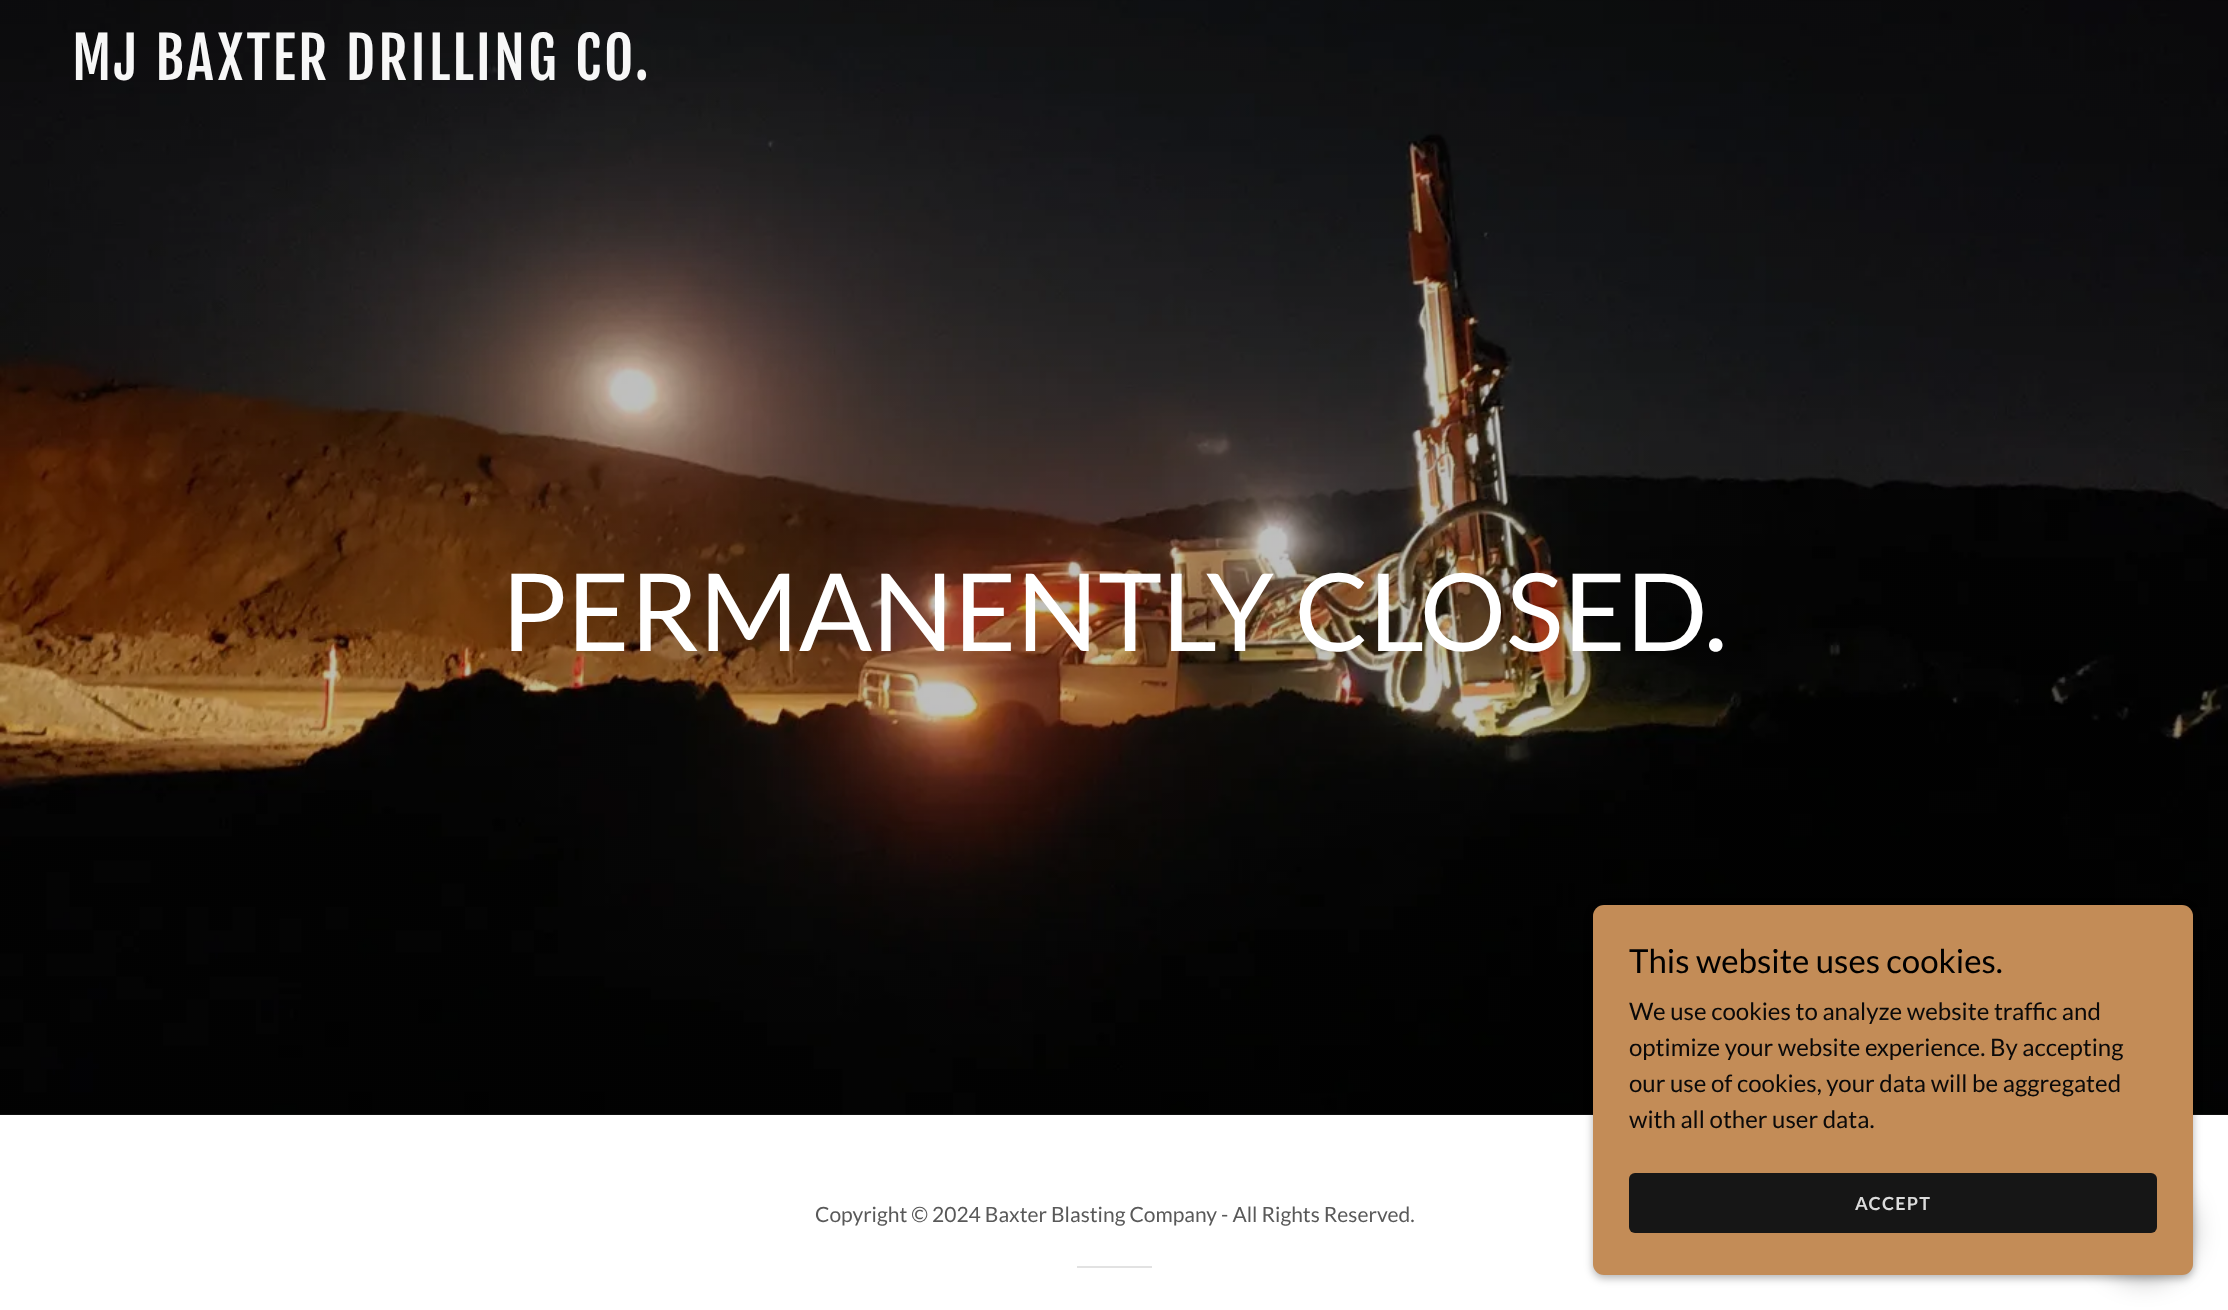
async function draw(canvas) {
  canvas.width = 2228
  canvas.height = 1310
  const ctx = canvas.getContext('2d')
  ctx.miterLimit = 4
  ctx.fontKerning = 'normal'
  async function loadImage(src) {
    const img = new Image()
    img.src = src
    await img.decode()
    return img
  }

  ctx.fillStyle = '#fff'
  ctx.fillRect(0, 0, 2228, 1310)
  ctx.fillStyle = '#161616'
  ctx.fillRect(0, 1114, 2228, 1)
  ctx.drawImage(await loadImage('image0.png'), 0, 0, 2228, 1115)
  ctx.letterSpacing = '3px'
  ctx.font = '57px Fjalla One'
  ctx.fillStyle = '#f7f7f7'
  ctx.fillText('MJ BAXTER DRILLING CO.', 72, 80)
  ctx.letterSpacing = '0px'
  ctx.font = '108px Lato'
  ctx.fillStyle = '#fff'
  ctx.fillText('PERMANENTLY CLOSED.', 501, 651)
  ctx.font = '21px Lato'
  ctx.fillStyle = '#595959'
  ctx.fillText('Copyright © 2024 Baxter Blasting Company - All Rights Reserved.', 815, 1222)
  ctx.fillStyle = '#e2e2e2'
  ctx.fillRect(1077, 1266, 75, 2)
  ctx.fillStyle = '#0000004d'
  ctx.filter = 'blur(4.5px)'
  ctx.beginPath()
  ctx.roundRect(1593, 908, 600, 370, 11)
  ctx.fill()
  ctx.filter = 'none'
  ctx.fillStyle = '#00000040'
  ctx.filter = 'blur(13.5px)'
  ctx.beginPath()
  ctx.roundRect(2096, 1182, 97, 98, 48.5)
  ctx.fill()
  ctx.filter = 'none'
  ctx.fillStyle = '#c38c57'
  ctx.beginPath()
  ctx.roundRect(1593, 905, 600, 370, 11)
  ctx.fill()
  ctx.font = '33px Lato'
  ctx.fillStyle = '#000'
  ctx.fillText('This website uses cookies.', 1629, 973)
  ctx.font = '24px Lato'
  ctx.fillStyle = '#0a0909'
  ctx.fillText('We use cookies to analyze website traffic and', 1629, 1020)
  ctx.fillText('optimize your website experience. By accepting', 1629, 1056)
  ctx.fillText('our use of cookies, your data will be aggregated', 1629, 1092)
  ctx.fillText('with all other user data.', 1629, 1128)
  ctx.fillStyle = '#161616'
  ctx.beginPath()
  ctx.roundRect(1629, 1173, 528, 60, 6)
  ctx.fill()
  ctx.letterSpacing = '1.25px'
  ctx.font = 'bold 18px Lato'
  ctx.fillStyle = '#dbdbdb'
  ctx.fillText('ACCEPT', 1855, 1210)
}

draw(document.querySelector('canvas'))
